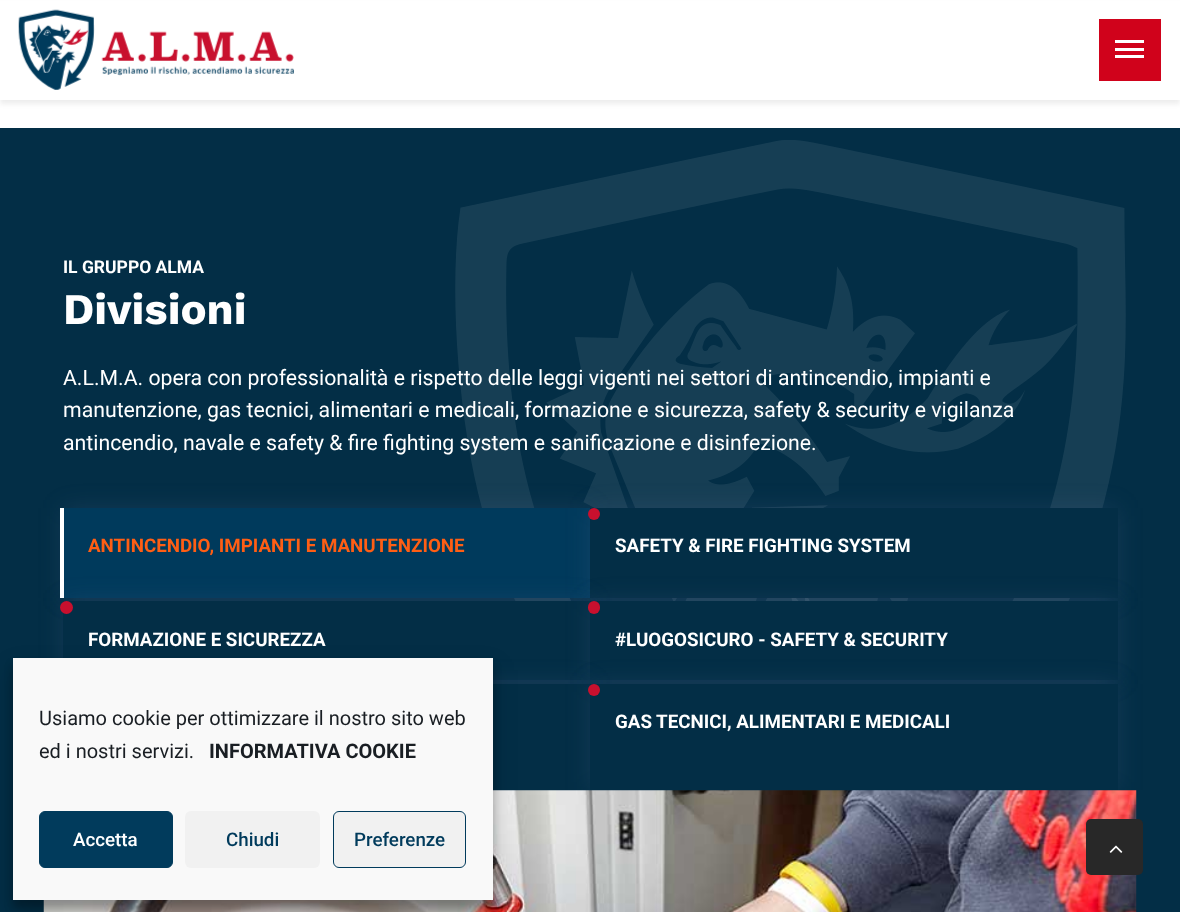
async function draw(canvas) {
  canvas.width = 1180
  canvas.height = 912
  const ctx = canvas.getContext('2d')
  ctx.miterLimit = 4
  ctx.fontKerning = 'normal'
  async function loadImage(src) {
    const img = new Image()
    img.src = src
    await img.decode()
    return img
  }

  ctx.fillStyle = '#fff'
  ctx.fillRect(0, 0, 1180, 912)
  ctx.fillStyle = '#00000012'
  ctx.filter = 'blur(2.5px)'
  ctx.beginPath()
  ctx.rect(0, 4, 1180, 100)
  ctx.fill()
  ctx.filter = 'none'
  ctx.fillStyle = '#fff'
  ctx.fillRect(0, 1, 1180, 99)
  ctx.drawImage(await loadImage('image0.png'), 18, 9, 276, 81)
  ctx.fillStyle = '#d0021b'
  ctx.fillRect(1099, 19, 62, 62)
  ctx.fillStyle = '#fff'
  ctx.fillRect(1115, 40, 29, 3)
  ctx.fillRect(1115, 48, 29, 3)
  ctx.fillRect(1115, 55, 29, 3)
  ctx.fillStyle = '#032e46'
  ctx.fillRect(0, 128, 1180, 784)
  ctx.drawImage(await loadImage('image1.png'), 455, 140, 671, 461)
  ctx.font = 'bold 17.5px Roboto'
  ctx.fillStyle = '#fff'
  ctx.fillText('IL GRUPPO ALMA', 63, 273)
  ctx.font = 'bold 43.75px Work Sans'
  ctx.fillText('Divisioni', 63, 324)
  ctx.font = '21.25px Roboto'
  ctx.fillText('A.L.M.A. opera con professionalità e rispetto delle leggi vigenti nei settori di antincendio, impianti e', 63, 385)
  ctx.fillText('manutenzione, gas tecnici, alimentari e medicali, formazione e sicurezza, safety & security e vigilanza', 63, 417)
  ctx.fillText('antincendio, navale e safety & fire fighting system e sanificazione e disinfezione.', 63, 450)
  ctx.fillStyle = '#787fb826'
  ctx.filter = 'blur(12.5px)'
  ctx.beginPath()
  ctx.rect(63, 508, 527, 90)
  ctx.fill()
  ctx.filter = 'none'
  ctx.fillStyle = '#003a5c'
  ctx.fillRect(64, 508, 526, 90)
  ctx.fillStyle = '#fff'
  ctx.fillRect(60, 508, 4, 90)
  ctx.font = 'bold 18.75px Roboto'
  ctx.fillStyle = '#ff5e14'
  ctx.fillText('ANTINCENDIO, IMPIANTI E MANUTENZIONE', 88, 552)
  ctx.fillStyle = '#787fb826'
  ctx.filter = 'blur(12.5px)'
  ctx.beginPath()
  ctx.rect(590, 508, 528, 90)
  ctx.fill()
  ctx.filter = 'none'
  ctx.fillStyle = '#032e46'
  ctx.fillRect(590, 508, 528, 90)
  ctx.fillStyle = '#c8102e'
  ctx.beginPath()
  ctx.arc(594, 514, 6, 0, 2 * Math.PI)
  ctx.fill()
  ctx.fillStyle = '#fff'
  ctx.fillText('SAFETY & FIRE FIGHTING SYSTEM', 615, 552)
  ctx.fillStyle = '#787fb826'
  ctx.filter = 'blur(12.5px)'
  ctx.beginPath()
  ctx.rect(63, 601, 527, 79)
  ctx.fill()
  ctx.filter = 'none'
  ctx.fillStyle = '#032e46'
  ctx.fillRect(63, 601, 527, 79)
  ctx.fillStyle = '#c8102e'
  ctx.beginPath()
  ctx.arc(66.5, 607.5, 6.5, 0, 2 * Math.PI)
  ctx.fill()
  ctx.fillStyle = '#fff'
  ctx.fillText('FORMAZIONE E SICUREZZA', 88, 646)
  ctx.fillStyle = '#787fb826'
  ctx.filter = 'blur(12.5px)'
  ctx.beginPath()
  ctx.rect(590, 601, 528, 79)
  ctx.fill()
  ctx.filter = 'none'
  ctx.fillStyle = '#032e46'
  ctx.fillRect(590, 601, 528, 79)
  ctx.fillStyle = '#c8102e'
  ctx.beginPath()
  ctx.roundRect(588, 601, 12, 13, 6)
  ctx.fill()
  ctx.fillStyle = '#fff'
  ctx.fillText('#LUOGOSICURO - SAFETY & SECURITY', 615, 646)
  ctx.fillStyle = '#787fb826'
  ctx.filter = 'blur(12.5px)'
  ctx.beginPath()
  ctx.rect(63, 684, 527, 106)
  ctx.fill()
  ctx.filter = 'none'
  ctx.fillStyle = '#032e46'
  ctx.fillRect(493, 684, 97, 106)
  ctx.fillStyle = '#787fb826'
  ctx.filter = 'blur(12.5px)'
  ctx.beginPath()
  ctx.rect(590, 684, 528, 106)
  ctx.fill()
  ctx.filter = 'none'
  ctx.fillStyle = '#032e46'
  ctx.fillRect(590, 684, 528, 106)
  ctx.fillStyle = '#c8102e'
  ctx.beginPath()
  ctx.arc(594, 690, 6, 0, 2 * Math.PI)
  ctx.fill()
  ctx.fillStyle = '#fff'
  ctx.fillText('GAS TECNICI, ALIMENTARI E MEDICALI', 615, 728)
  ctx.drawImage(await loadImage('image2.png'), 43, 790, 1094, 122)
  ctx.fillStyle = '#0000003b'
  ctx.filter = 'blur(4px)'
  ctx.beginPath()
  ctx.rect(13, 665, 480, 243)
  ctx.fill()
  ctx.filter = 'none'
  ctx.fillStyle = '#00000030'
  ctx.filter = 'blur(12.5px)'
  ctx.beginPath()
  ctx.rect(13, 670, 480, 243)
  ctx.fill()
  ctx.filter = 'none'
  ctx.fillStyle = '#f9f9f9'
  ctx.fillRect(13, 658, 480, 242)
  ctx.font = '20px Roboto'
  ctx.fillStyle = '#191e23'
  ctx.fillText('Usiamo cookie per ottimizzare il nostro sito web', 39, 725)
  ctx.fillText('ed i nostri servizi.', 39, 758)
  ctx.font = 'bold 20px Roboto'
  ctx.fillText('INFORMATIVA COOKIE', 209, 758)
  ctx.fillStyle = '#013b5c'
  ctx.beginPath()
  ctx.roundRect(39.5, 811.5, 133, 56, 5.5)
  ctx.fill()
  ctx.strokeStyle = '#013b5c'
  ctx.stroke()
  ctx.font = '500 18.75px Roboto'
  ctx.fillStyle = '#fff'
  ctx.fillText('Accetta', 73, 846)
  ctx.fillStyle = '#f1f1f1'
  ctx.beginPath()
  ctx.roundRect(185, 811, 135, 57, 6)
  ctx.fill()
  ctx.fillStyle = '#013b5c'
  ctx.fillText('Chiudi', 226, 846)
  ctx.fillStyle = '#f1f1f1'
  ctx.beginPath()
  ctx.roundRect(333.5, 811.5, 132, 56, 5.5)
  ctx.fill()
  ctx.stroke()
  ctx.fillStyle = '#013b5c'
  ctx.fillText('Preferenze', 354, 846)
  ctx.fillStyle = '#282828'
  ctx.beginPath()
  ctx.roundRect(1086, 819, 57, 56, 5)
  ctx.fill()
  ctx.drawImage(await loadImage('image3.png'), 1109, 845, 14, 8)
}

draw(document.querySelector('canvas'))
